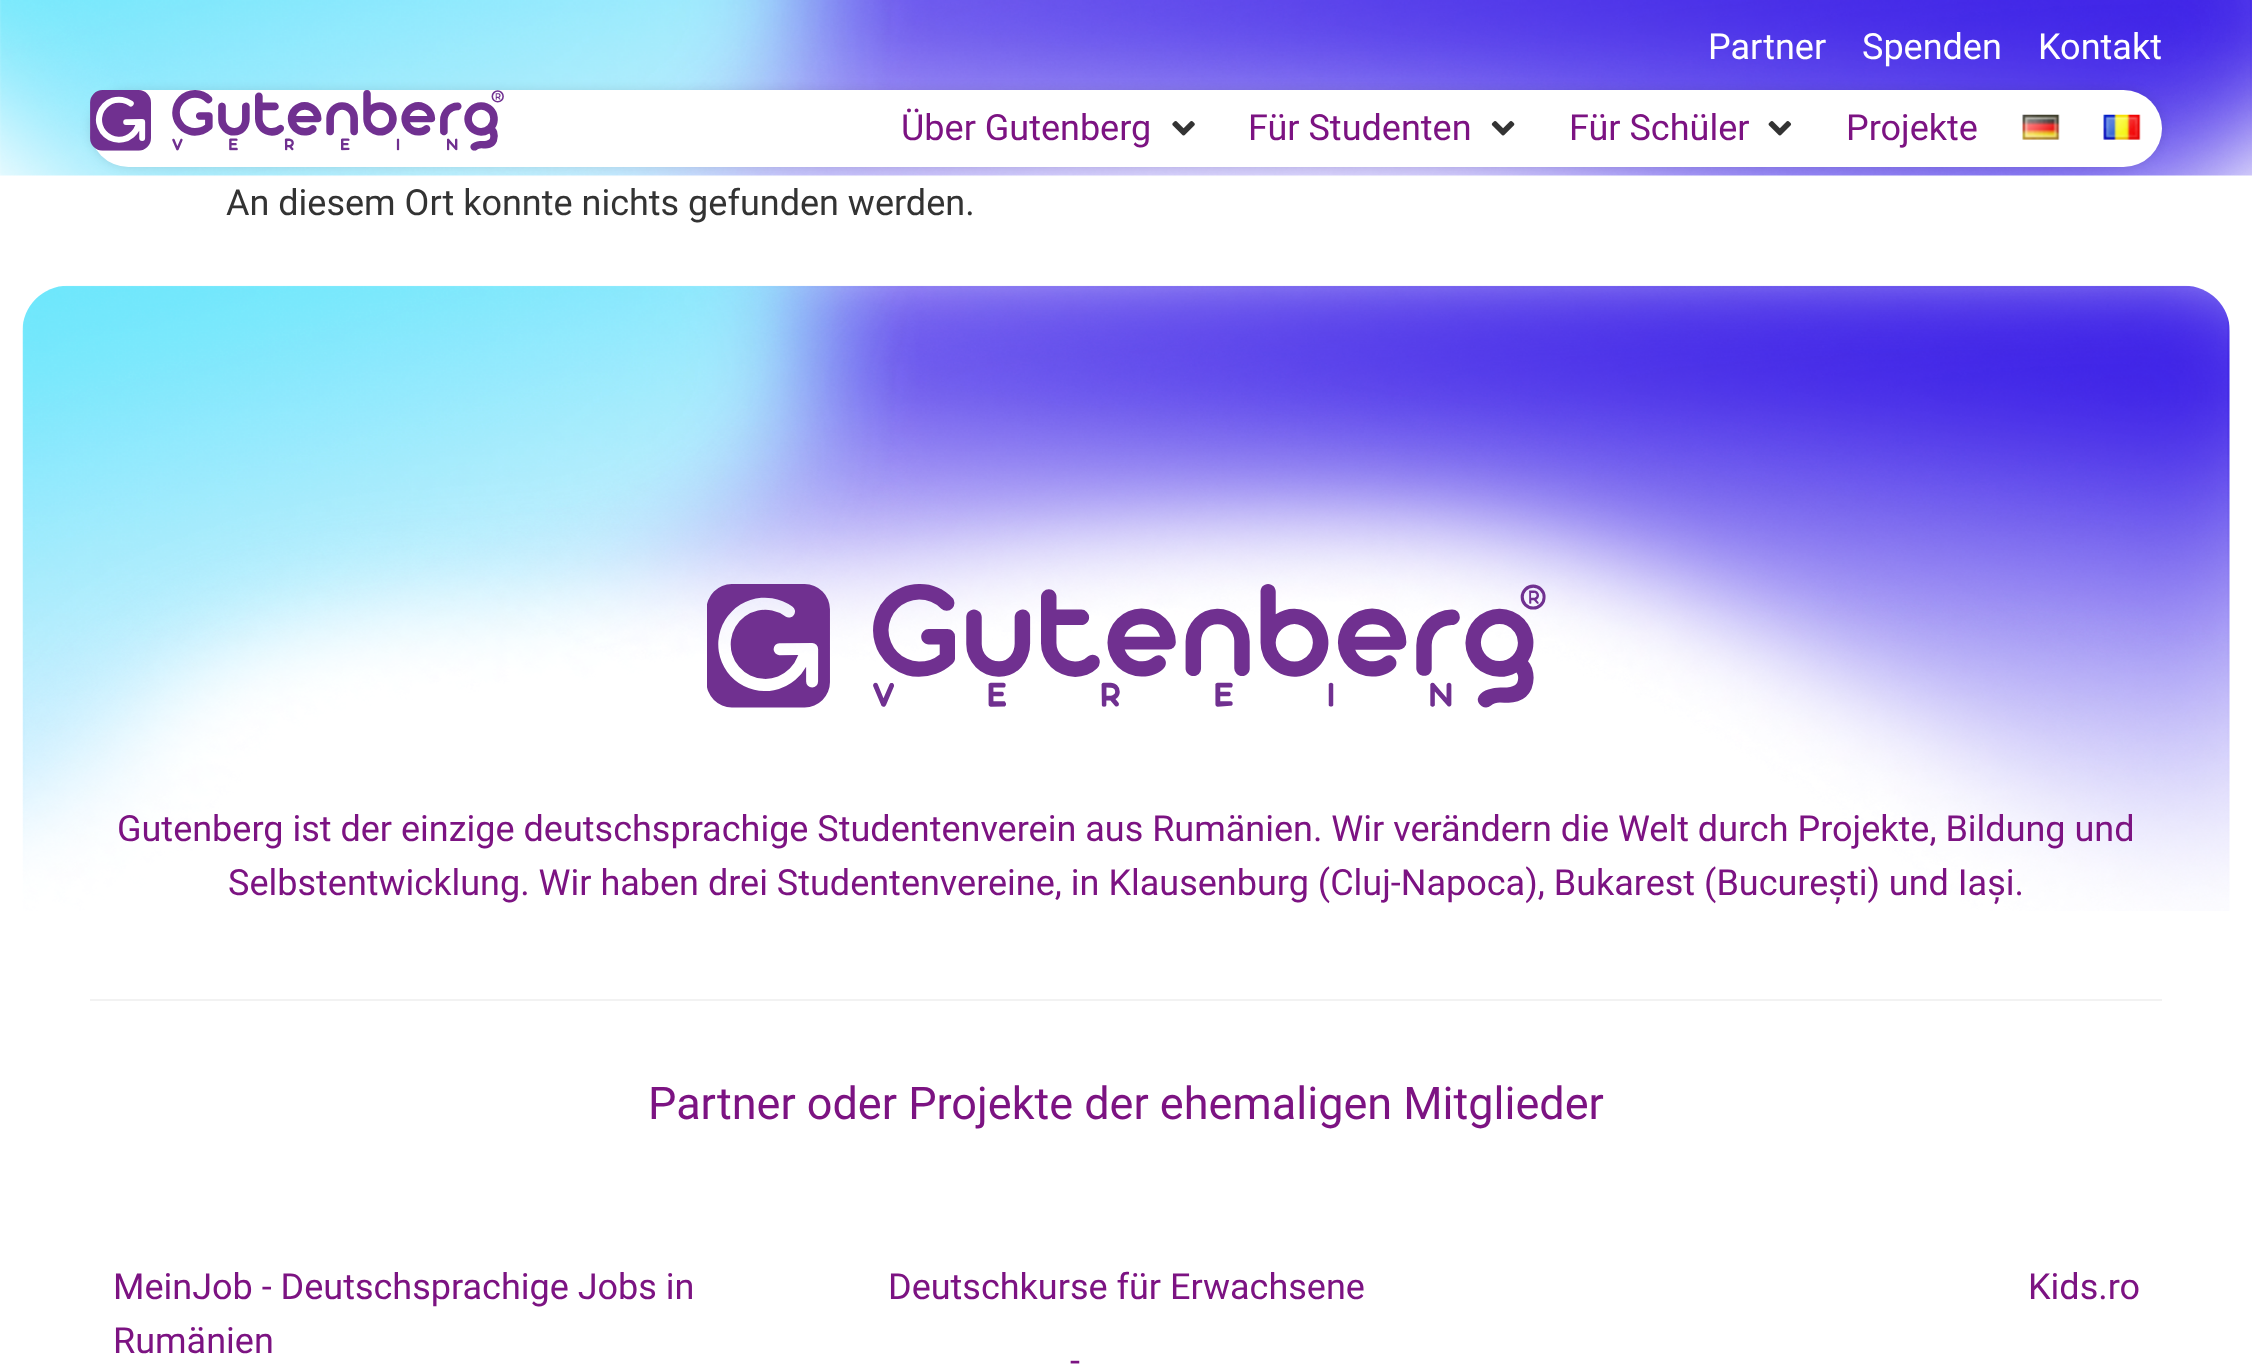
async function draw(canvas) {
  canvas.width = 2252
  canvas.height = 1364
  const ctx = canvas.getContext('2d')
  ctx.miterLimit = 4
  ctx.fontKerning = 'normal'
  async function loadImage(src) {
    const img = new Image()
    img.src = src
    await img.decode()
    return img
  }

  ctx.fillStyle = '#fff'
  ctx.fillRect(0, 0, 2252, 1364)
  ctx.drawImage(await loadImage('image0.png'), 0, 0, 2252, 176)
  ctx.font = '36px Roboto'
  ctx.fillText('Partner', 1708, 59)
  ctx.fillText('Spenden', 1862, 59)
  ctx.fillText('Kontakt', 2038, 59)
  ctx.fillStyle = '#0000001a'
  ctx.filter = 'blur(5.5px)'
  ctx.beginPath()
  ctx.roundRect(90, 90, 2072, 77, 38.5)
  ctx.fill()
  ctx.filter = 'none'
  ctx.fillStyle = '#fff'
  ctx.beginPath()
  ctx.roundRect(90, 90, 2072, 77, 38.5)
  ctx.fill()
  ctx.drawImage(await loadImage('image1.png'), 90, 90, 414, 61)
  ctx.fillStyle = '#7c1382'
  ctx.fillText('Über Gutenberg', 901, 140)
  ctx.drawImage(await loadImage('image2.png'), 1172, 121, 23, 15)
  ctx.fillText('Für Studenten', 1248, 140)
  ctx.drawImage(await loadImage('image3.png'), 1491, 121, 24, 15)
  ctx.fillText('Für Schüler', 1569, 140)
  ctx.drawImage(await loadImage('image4.png'), 1768, 121, 24, 15)
  ctx.fillText('Projekte', 1846, 140)
  ctx.drawImage(await loadImage('image5.png'), 2022, 114, 38, 26)
  ctx.drawImage(await loadImage('image6.png'), 2103, 114, 38, 26)
  ctx.fillStyle = '#333'
  ctx.fillText('An diesem Ort konnte nichts gefunden werden.', 226, 215)
  ctx.drawImage(await loadImage('image7.png'), 22, 285, 2208, 626)
  ctx.drawImage(await loadImage('image8.png'), 707, 584, 839, 124)
  ctx.fillStyle = '#7c1382'
  ctx.fillText('Gutenberg ist der einzige deutschsprachige Studentenverein aus Rumänien. Wir verändern die Welt durch Projekte, Bildung und', 117, 841)
  ctx.fillText('Selbstentwicklung. Wir haben drei Studentenvereine, in Klausenburg (Cluj-Napoca), Bukarest (București) und Iași.', 228, 895)
  ctx.fillStyle = '#f2f2f2'
  ctx.fillRect(90, 999, 2072, 2)
  ctx.font = '45px Roboto'
  ctx.fillStyle = '#7c1382'
  ctx.fillText('Partner oder Projekte der ehemaligen Mitglieder', 648, 1119)
  ctx.font = '36px Roboto'
  ctx.fillText('MeinJob - Deutschsprachige Jobs in', 113, 1299)
  ctx.fillText('Rumänien', 113, 1353)
  ctx.fillText('Deutschkurse für Erwachsene', 888, 1299)
  ctx.fillText('-', 1070, 1373)
  ctx.fillText('Kids.ro', 2028, 1299)
}

draw(document.querySelector('canvas'))
